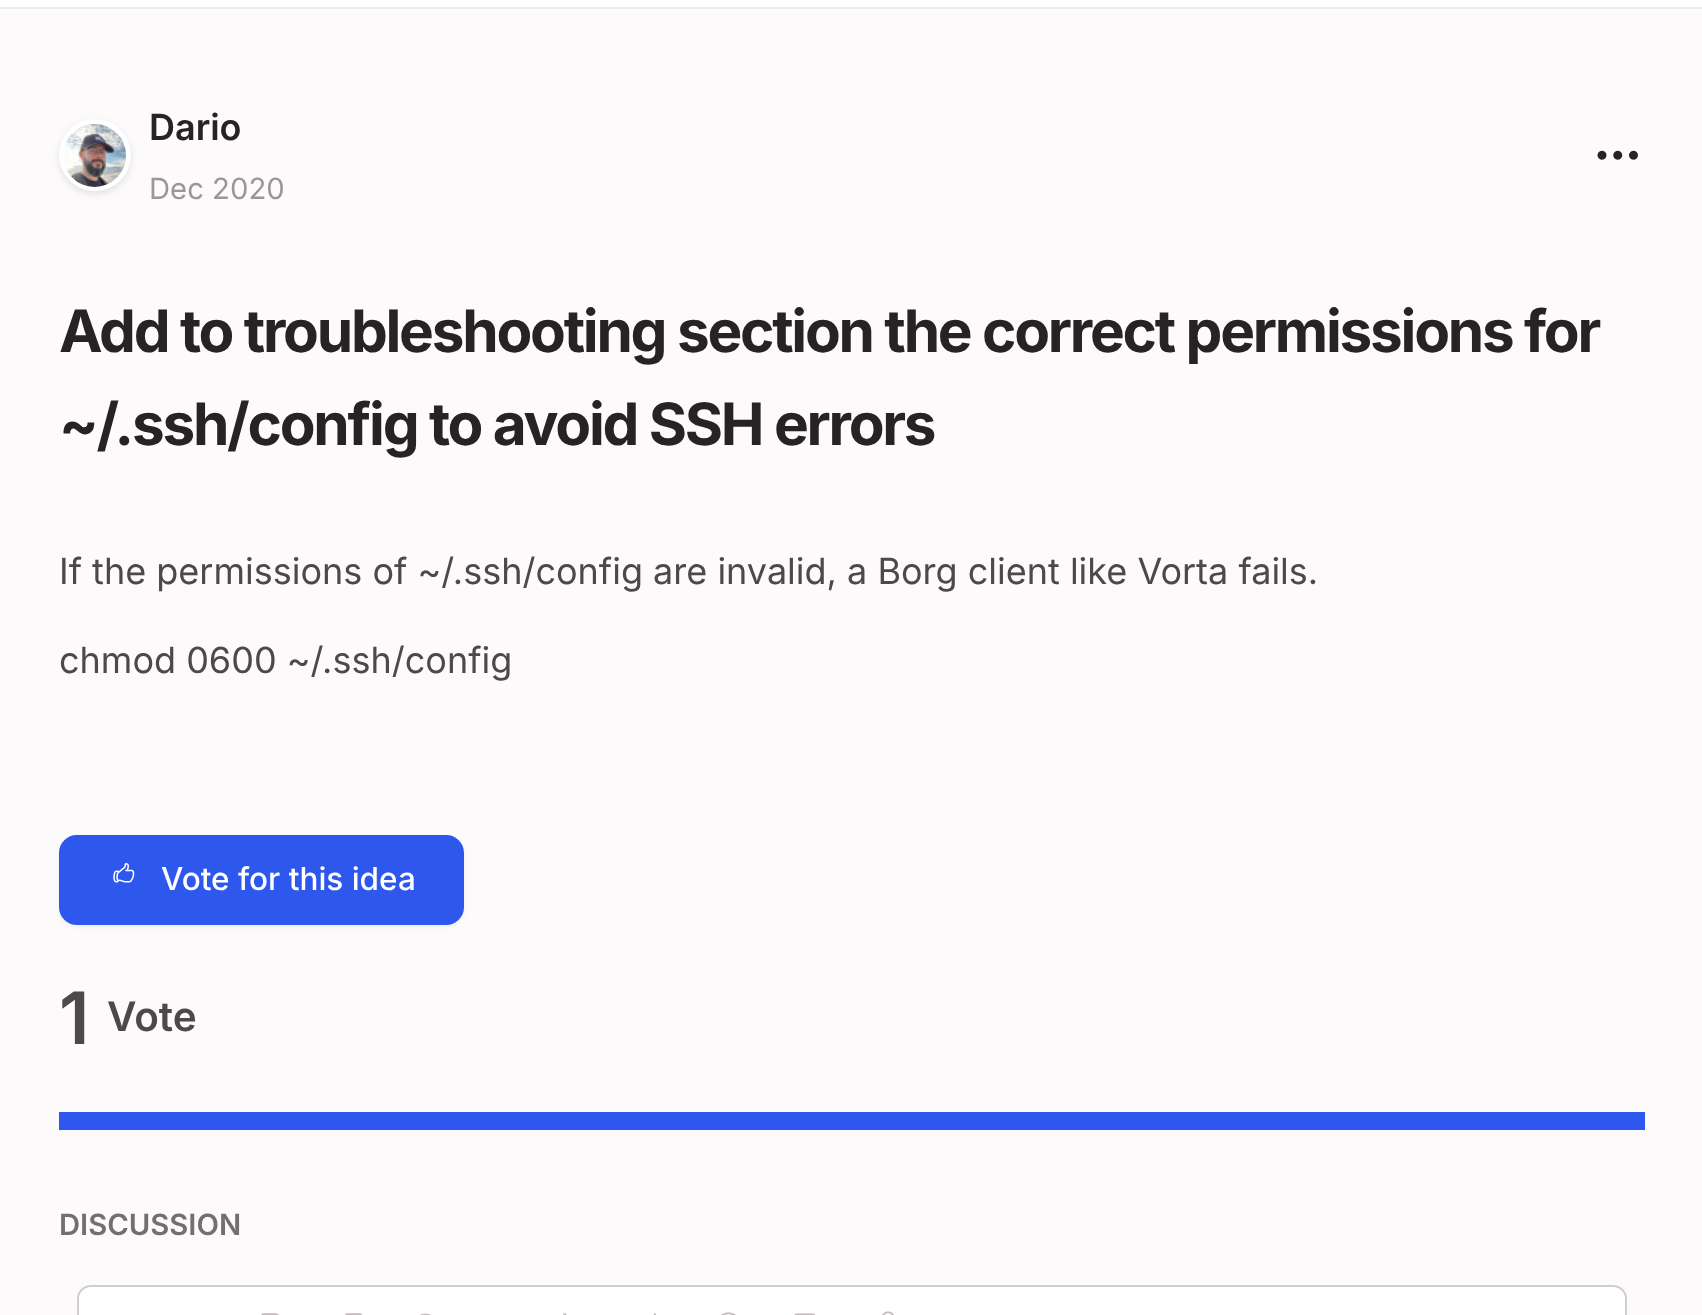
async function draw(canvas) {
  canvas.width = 1702
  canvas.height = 1315
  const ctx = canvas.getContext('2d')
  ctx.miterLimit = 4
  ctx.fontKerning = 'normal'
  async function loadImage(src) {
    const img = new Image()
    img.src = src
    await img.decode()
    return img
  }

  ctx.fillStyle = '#fcfafa'
  ctx.fillRect(0, 0, 1702, 1315)
  ctx.fillStyle = '#fff'
  ctx.fillRect(0, 0, 1702, 7)
  ctx.fillStyle = '#eeebeb'
  ctx.fillRect(0, 7, 1702, 2)
  ctx.fillStyle = '#0000001a'
  ctx.filter = 'blur(3.5px)'
  ctx.beginPath()
  ctx.roundRect(59, 122, 72, 72, 36)
  ctx.fill()
  ctx.filter = 'none'
  ctx.beginPath()
  ctx.arc(95, 155, 33.5, 0, 2 * Math.PI)
  ctx.strokeStyle = '#fff'
  ctx.lineWidth = 5
  ctx.stroke()
  ctx.drawImage(await loadImage('image0.png'), 63, 124, 63, 63)
  ctx.font = '600 36px Inter'
  ctx.fillStyle = '#262225'
  ctx.fillText('Dario', 149, 140)
  ctx.font = '29.25px Inter'
  ctx.fillStyle = '#9d9598'
  ctx.fillText('Dec 2020', 149, 199)
  ctx.drawImage(await loadImage('image1.png'), 1597, 150, 41, 10)
  ctx.letterSpacing = '-2.25px'
  ctx.font = 'bold 58.5px Inter'
  ctx.fillStyle = '#262225'
  ctx.fillText('Add to troubleshooting section the correct permissions for', 59, 352)
  ctx.fillText('~/.ssh/config to avoid SSH errors', 59, 445)
  ctx.letterSpacing = '0px'
  ctx.font = '36px Inter'
  ctx.fillStyle = '#4e474b'
  ctx.fillText('If the permissions of ~/.ssh/config are invalid, a Borg client like Vorta fails.', 59, 584)
  ctx.fillText('chmod 0600 ~/.ssh/config', 59, 673)
  ctx.fillStyle = '#0000000d'
  ctx.filter = 'blur(2px)'
  ctx.beginPath()
  ctx.roundRect(59, 837, 405, 90, 18)
  ctx.fill()
  ctx.filter = 'none'
  ctx.fillStyle = '#2d57ed'
  ctx.beginPath()
  ctx.roundRect(60, 836, 403, 88, 17)
  ctx.fill()
  ctx.strokeStyle = '#2d57ed'
  ctx.lineWidth = 2
  ctx.stroke()
  ctx.drawImage(await loadImage('image2.png'), 113, 863, 22, 20)
  ctx.font = '500 31.5px Inter'
  ctx.fillStyle = '#fff'
  ctx.fillText('Vote for this idea', 161, 890)
  ctx.font = '600 72px Inter'
  ctx.fillStyle = '#4e474b'
  ctx.fillText('1', 59, 1044)
  ctx.font = '600 40.5px Inter'
  ctx.fillText('Vote', 107, 1031)
  ctx.fillStyle = '#2d57ed'
  ctx.fillRect(59, 1112, 1586, 18)
  ctx.font = '600 29.25px Inter'
  ctx.fillStyle = '#756e71'
  ctx.fillText('DISCUSSION', 59, 1235)
  ctx.fillStyle = '#fff'
  ctx.beginPath()
  ctx.roundRect(78, 1286, 1548, 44, 13)
  ctx.fill()
  ctx.strokeStyle = '#d2cdcf'
  ctx.stroke()
  ctx.drawImage(await loadImage('image3.png'), 261, 1313, 19, 2)
  ctx.drawImage(await loadImage('image4.png'), 345, 1313, 17, 2)
  ctx.drawImage(await loadImage('image5.png'), 419, 1313, 13, 2)
  ctx.drawImage(await loadImage('image6.png'), 563, 1313, 4, 2)
  ctx.beginPath()
  ctx.moveTo(658.5, 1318)
  ctx.lineTo(665, 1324.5)
  ctx.lineTo(658.5, 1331.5)
  ctx.moveTo(645.5, 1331.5)
  ctx.lineTo(638.5, 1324.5)
  ctx.lineTo(645.5, 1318)
  ctx.moveTo(655, 1314)
  ctx.lineTo(649, 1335)
  ctx.strokeStyle = '#c4bec0'
  ctx.lineWidth = 1.9
  ctx.lineCap = 'round'
  ctx.lineJoin = 'round'
  ctx.stroke()
  ctx.drawImage(await loadImage('image7.png'), 721, 1312, 15, 3)
  ctx.drawImage(await loadImage('image8.png'), 794, 1313, 22, 2)
  ctx.drawImage(await loadImage('image9.png'), 882, 1311, 12, 4)
}

draw(document.querySelector('canvas'))
